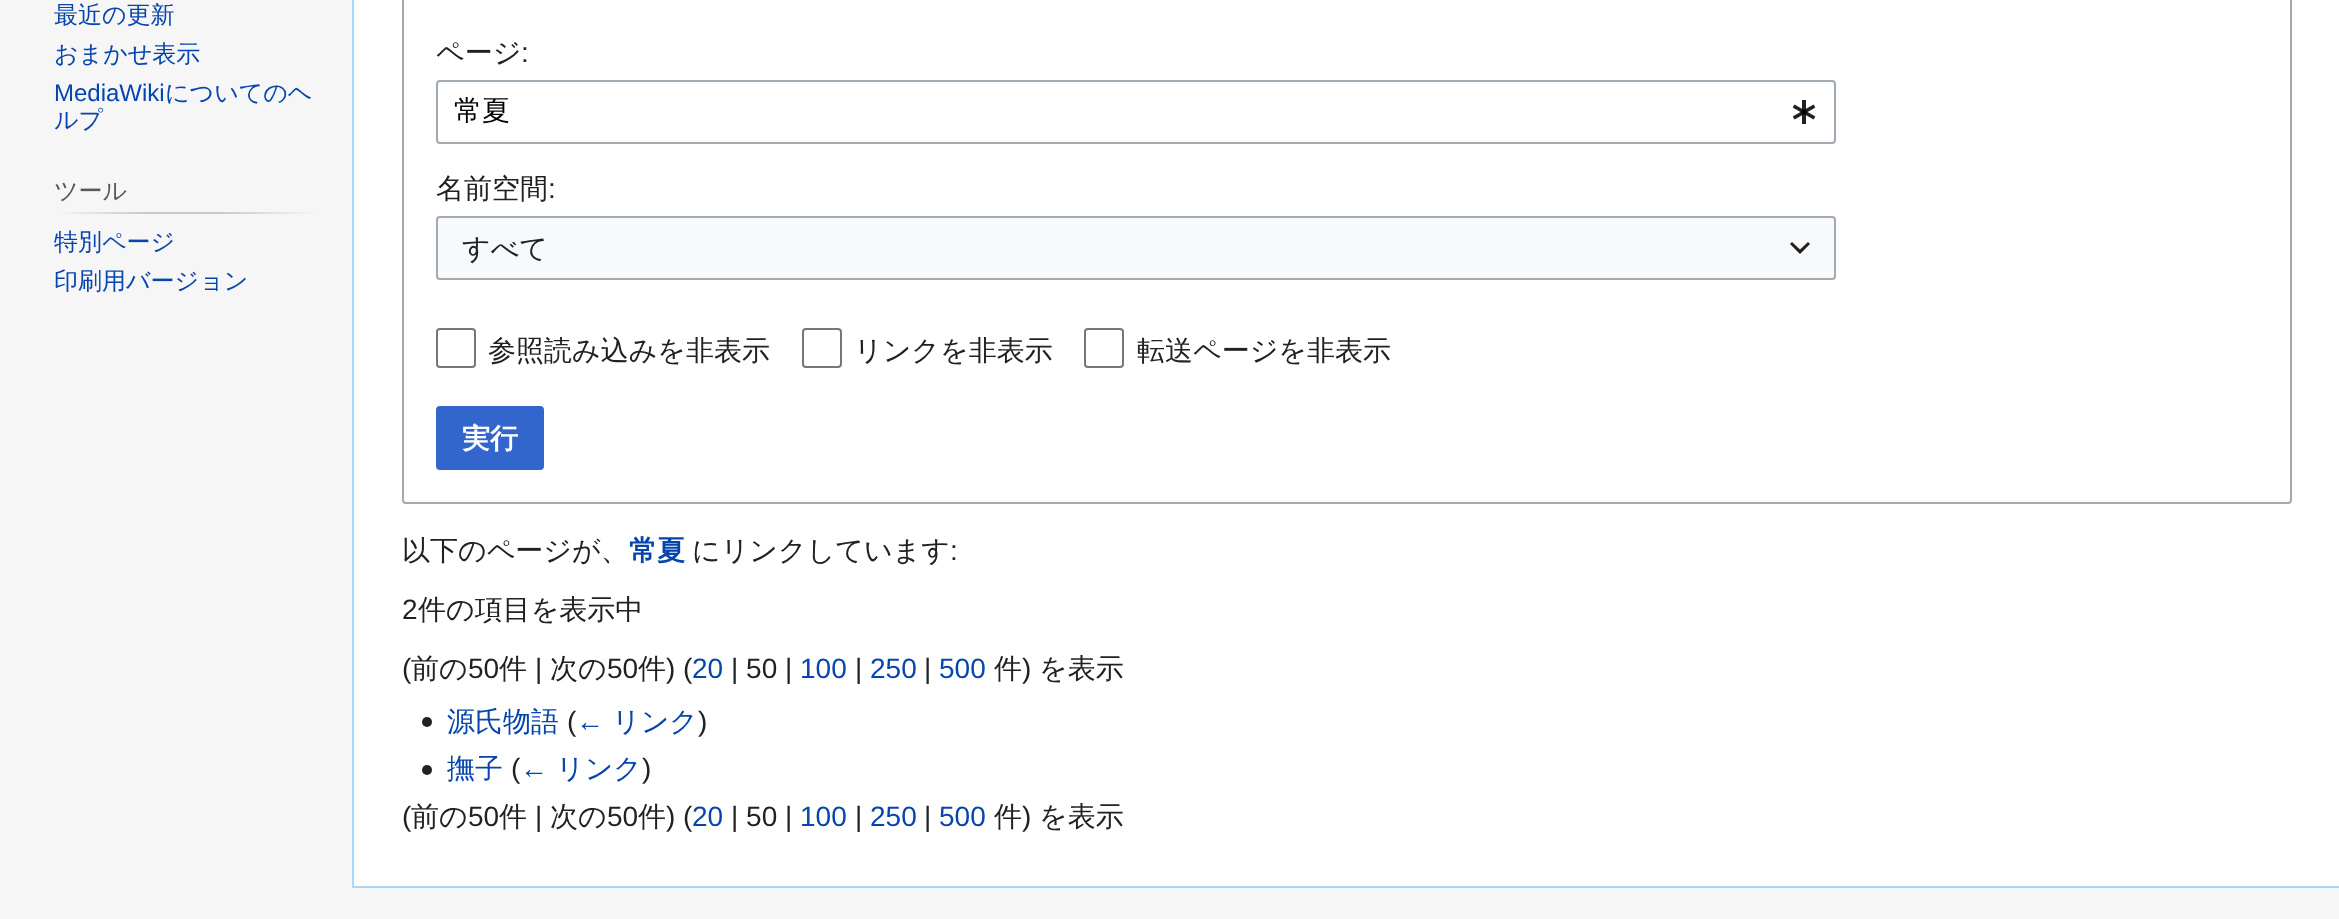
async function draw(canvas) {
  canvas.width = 2339
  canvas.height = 919
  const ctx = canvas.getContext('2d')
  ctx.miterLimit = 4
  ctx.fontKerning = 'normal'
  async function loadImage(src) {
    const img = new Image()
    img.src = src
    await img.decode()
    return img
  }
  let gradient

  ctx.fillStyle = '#f6f6f6'
  ctx.fillRect(0, 0, 2339, 919)
  ctx.font = '500 24px WenQuanYi Zen Hei'
  ctx.fillStyle = '#0645ad'
  ctx.fillText('最近の更新', 54, 23)
  ctx.fillText('おまかせ表示', 54, 62)
  ctx.font = '24px Liberation Sans'
  ctx.fillText('MediaWiki', 54, 101)
  ctx.font = '500 24px WenQuanYi Zen Hei'
  ctx.fillText('についてのヘ', 165, 101)
  ctx.fillText('ルプ', 54, 128)
  gradient = ctx.createLinearGradient(54, 213, 316, 213)
  gradient.addColorStop(0, '#f6f6f6')
  gradient.addColorStop(0.33, '#c8ccd1')
  gradient.addColorStop(0.66, '#c8ccd1')
  gradient.addColorStop(1, '#f6f6f6')
  ctx.fillStyle = gradient
  ctx.fillRect(54, 212, 262, 2)
  ctx.fillStyle = '#54595d'
  ctx.fillText('ツール', 54, 199)
  ctx.fillStyle = '#0645ad'
  ctx.fillText('特別ページ', 54, 250)
  ctx.fillText('印刷用バージョン', 54, 289)
  ctx.fillStyle = '#fff'
  ctx.fillRect(354, 0, 1985, 886)
  ctx.fillStyle = '#a7d7f9'
  ctx.fillRect(352, 886, 1987, 2)
  ctx.fillRect(352, 0, 2, 888)
  ctx.beginPath()
  ctx.roundRect(403, -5, 1888, 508, 3)
  ctx.strokeStyle = '#a2a9b1'
  ctx.lineWidth = 2
  ctx.stroke()
  ctx.font = '500 28px WenQuanYi Zen Hei'
  ctx.fillStyle = '#202122'
  ctx.fillText('ページ', 436, 62)
  ctx.font = '28px Liberation Sans'
  ctx.fillText(':', 521, 62)
  ctx.beginPath()
  ctx.roundRect(437, 81, 1398, 62, 3)
  ctx.stroke()
  ctx.font = '500 28px WenQuanYi Zen Hei'
  ctx.fillStyle = '#000'
  ctx.fillText('常夏', 454, 120)
  ctx.drawImage(await loadImage('image0.png'), 1792, 100, 24, 24)
  ctx.fillStyle = '#202122'
  ctx.fillText('名前空間', 436, 198)
  ctx.font = '28px Liberation Sans'
  ctx.fillText(':', 548, 198)
  ctx.fillStyle = '#f8f9fa'
  ctx.fillRect(436, 216, 1400, 64)
  ctx.beginPath()
  ctx.roundRect(437, 217, 1398, 62, 3)
  ctx.stroke()
  ctx.font = '500 28px WenQuanYi Zen Hei'
  ctx.fillStyle = '#202122'
  ctx.fillText('すべて', 462, 258)
  ctx.fillStyle = '#202021'
  ctx.beginPath()
  ctx.moveTo(1808, 242)
  ctx.lineTo(1800, 249.5)
  ctx.lineTo(1792, 242)
  ctx.lineTo(1790, 244)
  ctx.lineTo(1800, 254)
  ctx.lineTo(1810, 244)
  ctx.closePath()
  ctx.fill()
  ctx.beginPath()
  ctx.roundRect(437, 329, 38, 38, 3)
  ctx.strokeStyle = '#72777d'
  ctx.stroke()
  ctx.fillStyle = '#202122'
  ctx.fillText('参照読み込みを非表示', 488, 360)
  ctx.beginPath()
  ctx.roundRect(803, 329, 38, 38, 3)
  ctx.stroke()
  ctx.fillText('リンクを非表示', 854, 360)
  ctx.beginPath()
  ctx.roundRect(1085, 329, 38, 38, 3)
  ctx.stroke()
  ctx.fillText('転送ページを非表示', 1137, 360)
  ctx.fillStyle = '#36c'
  ctx.beginPath()
  ctx.roundRect(437, 407, 106, 62, 3)
  ctx.fill()
  ctx.strokeStyle = '#36c'
  ctx.stroke()
  ctx.font = 'bold 28px WenQuanYi Zen Hei'
  ctx.fillStyle = '#fff'
  ctx.fillText('実行', 462, 448)
  ctx.font = '500 28px WenQuanYi Zen Hei'
  ctx.fillStyle = '#202122'
  ctx.fillText('以下のページが、', 402, 560)
  ctx.font = 'bold 28px WenQuanYi Zen Hei'
  ctx.fillStyle = '#0645ad'
  ctx.fillText('常夏', 629, 560)
  ctx.font = '500 28px WenQuanYi Zen Hei'
  ctx.fillStyle = '#202122'
  ctx.fillText('にリンクしています', 692, 560)
  ctx.font = '28px Liberation Sans'
  ctx.fillText(':', 950, 560)
  ctx.fillText('2', 402, 619)
  ctx.font = '500 28px WenQuanYi Zen Hei'
  ctx.fillText('件の項目を表示中', 418, 619)
  ctx.font = '28px Liberation Sans'
  ctx.fillText('(', 402, 678)
  ctx.font = '500 28px WenQuanYi Zen Hei'
  ctx.fillText('前の', 411, 678)
  ctx.font = '28px Liberation Sans'
  ctx.fillText('50', 468, 678)
  ctx.font = '500 28px WenQuanYi Zen Hei'
  ctx.fillText('件', 499, 678)
  ctx.font = '28px Liberation Sans'
  ctx.fillText('|', 535, 678)
  ctx.font = '500 28px WenQuanYi Zen Hei'
  ctx.fillText('次の', 550, 678)
  ctx.font = '28px Liberation Sans'
  ctx.fillText('50', 607, 678)
  ctx.font = '500 28px WenQuanYi Zen Hei'
  ctx.fillText('件', 638, 678)
  ctx.font = '28px Liberation Sans'
  ctx.fillText(') (', 666, 678)
  ctx.fillStyle = '#0645ad'
  ctx.fillText('20', 692, 678)
  ctx.fillStyle = '#202122'
  ctx.fillText('| 50 |', 731, 678)
  ctx.fillStyle = '#0645ad'
  ctx.fillText('100', 800, 678)
  ctx.fillStyle = '#202122'
  ctx.fillText('|', 855, 678)
  ctx.fillStyle = '#0645ad'
  ctx.fillText('250', 870, 678)
  ctx.fillStyle = '#202122'
  ctx.fillText('|', 924, 678)
  ctx.fillStyle = '#0645ad'
  ctx.fillText('500', 939, 678)
  ctx.font = '500 28px WenQuanYi Zen Hei'
  ctx.fillStyle = '#202122'
  ctx.fillText('件', 994, 678)
  ctx.font = '28px Liberation Sans'
  ctx.fillText(')', 1022, 678)
  ctx.font = '500 28px WenQuanYi Zen Hei'
  ctx.fillText('を表示', 1039, 678)
  ctx.drawImage(await loadImage('image1.png'), 422, 717, 10, 10)
  ctx.fillStyle = '#0645ad'
  ctx.fillText('源氏物語', 447, 731)
  ctx.font = '28px Liberation Sans'
  ctx.fillStyle = '#202122'
  ctx.fillText('(', 567, 731)
  ctx.fillStyle = '#0645ad'
  ctx.fillText('←', 576, 731)
  ctx.font = '500 28px WenQuanYi Zen Hei'
  ctx.fillText('リンク', 612, 731)
  ctx.font = '28px Liberation Sans'
  ctx.fillStyle = '#202122'
  ctx.fillText(')', 698, 731)
  ctx.drawImage(await loadImage('image1.png'), 422, 765, 10, 10)
  ctx.font = '500 28px WenQuanYi Zen Hei'
  ctx.fillStyle = '#0645ad'
  ctx.fillText('撫子', 447, 778)
  ctx.font = '28px Liberation Sans'
  ctx.fillStyle = '#202122'
  ctx.fillText('(', 511, 778)
  ctx.fillStyle = '#0645ad'
  ctx.fillText('←', 520, 778)
  ctx.font = '500 28px WenQuanYi Zen Hei'
  ctx.fillText('リンク', 556, 778)
  ctx.font = '28px Liberation Sans'
  ctx.fillStyle = '#202122'
  ctx.fillText(')', 642, 778)
  ctx.fillText('(', 402, 826)
  ctx.font = '500 28px WenQuanYi Zen Hei'
  ctx.fillText('前の', 411, 826)
  ctx.font = '28px Liberation Sans'
  ctx.fillText('50', 468, 826)
  ctx.font = '500 28px WenQuanYi Zen Hei'
  ctx.fillText('件', 499, 826)
  ctx.font = '28px Liberation Sans'
  ctx.fillText('|', 535, 826)
  ctx.font = '500 28px WenQuanYi Zen Hei'
  ctx.fillText('次の', 550, 826)
  ctx.font = '28px Liberation Sans'
  ctx.fillText('50', 607, 826)
  ctx.font = '500 28px WenQuanYi Zen Hei'
  ctx.fillText('件', 638, 826)
  ctx.font = '28px Liberation Sans'
  ctx.fillText(') (', 666, 826)
  ctx.fillStyle = '#0645ad'
  ctx.fillText('20', 692, 826)
  ctx.fillStyle = '#202122'
  ctx.fillText('| 50 |', 731, 826)
  ctx.fillStyle = '#0645ad'
  ctx.fillText('100', 800, 826)
  ctx.fillStyle = '#202122'
  ctx.fillText('|', 855, 826)
  ctx.fillStyle = '#0645ad'
  ctx.fillText('250', 870, 826)
  ctx.fillStyle = '#202122'
  ctx.fillText('|', 924, 826)
  ctx.fillStyle = '#0645ad'
  ctx.fillText('500', 939, 826)
  ctx.font = '500 28px WenQuanYi Zen Hei'
  ctx.fillStyle = '#202122'
  ctx.fillText('件', 994, 826)
  ctx.font = '28px Liberation Sans'
  ctx.fillText(')', 1022, 826)
  ctx.font = '500 28px WenQuanYi Zen Hei'
  ctx.fillText('を表示', 1039, 826)
}

draw(document.querySelector('canvas'))
